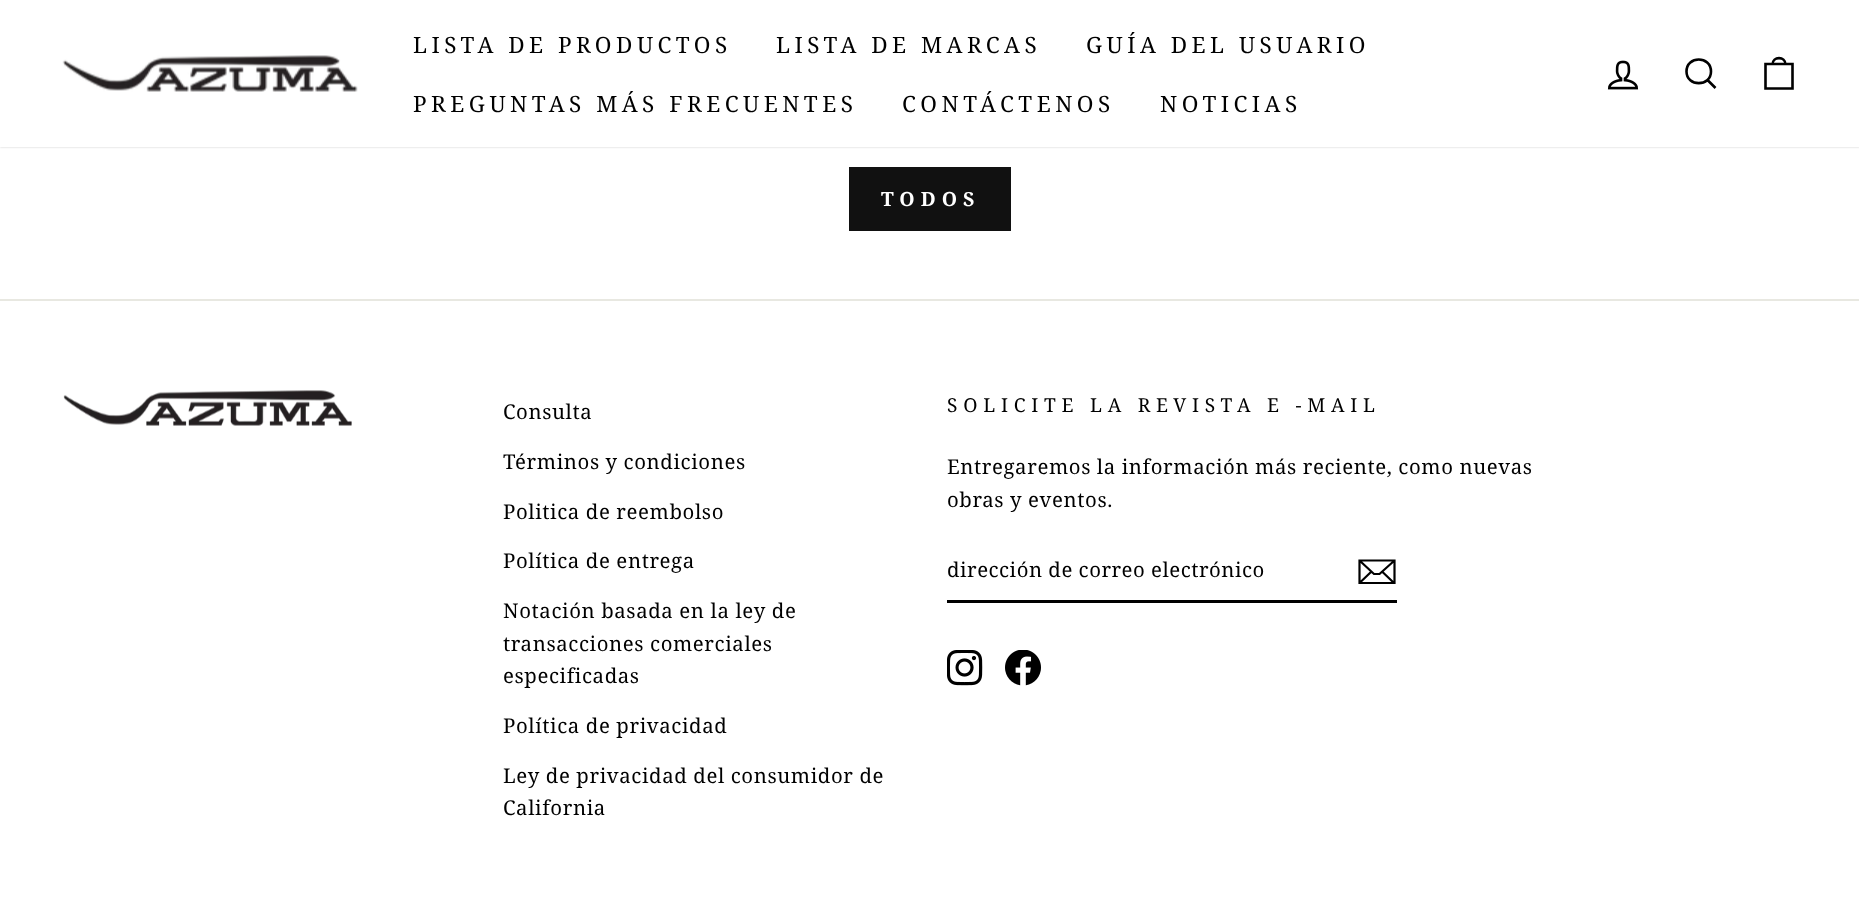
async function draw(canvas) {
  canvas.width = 1859
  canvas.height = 901
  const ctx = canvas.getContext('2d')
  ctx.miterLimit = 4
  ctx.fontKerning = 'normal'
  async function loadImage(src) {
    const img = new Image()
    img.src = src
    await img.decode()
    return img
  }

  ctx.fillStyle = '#fff'
  ctx.fillRect(0, 0, 1859, 901)
  ctx.fillStyle = '#00000033'
  ctx.filter = 'blur(1px)'
  ctx.beginPath()
  ctx.rect(0, 0, 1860, 147)
  ctx.fill()
  ctx.filter = 'none'
  ctx.fillStyle = '#fff'
  ctx.fillRect(0, 0, 1859, 147)
  ctx.drawImage(await loadImage('image0.png'), 62, 55, 296, 37)
  ctx.letterSpacing = '4.5px'
  ctx.font = '22.5px Noto Serif'
  ctx.fillStyle = '#000'
  ctx.fillText('LISTA DE PRODUCTOS', 413, 53)
  ctx.fillText('LISTA DE MARCAS', 776, 53)
  ctx.fillText('GUÍA DEL USUARIO', 1086, 53)
  ctx.fillText('PREGUNTAS MÁS FRECUENTES', 413, 112)
  ctx.fillText('CONTÁCTENOS', 902, 112)
  ctx.fillText('NOTICIAS', 1160, 112)
  ctx.drawImage(await loadImage('image1.png'), 1607, 60, 32, 30)
  ctx.beginPath()
  ctx.moveTo(1711, 71.5)
  ctx.bezierCurveTo(1711, 87, 1686.5, 87, 1686.5, 71.5)
  ctx.bezierCurveTo(1686.5, 55.5, 1711, 55.5, 1711, 71.5)
  ctx.closePath()
  ctx.moveTo(1715.5, 88)
  ctx.lineTo(1707.5, 80)
  ctx.strokeStyle = '#000'
  ctx.lineWidth = 2.6
  ctx.stroke()
  ctx.beginPath()
  ctx.moveTo(1765.5, 64)
  ctx.lineTo(1792.5, 64)
  ctx.lineTo(1792.5, 88.5)
  ctx.lineTo(1765.5, 88.5)
  ctx.closePath()
  ctx.moveTo(1772.5, 64.5)
  ctx.bezierCurveTo(1772.5, 56, 1785.5, 56, 1785.5, 64.5)
  ctx.stroke()
  ctx.fillStyle = '#111'
  ctx.fillRect(849, 167, 162, 64)
  ctx.letterSpacing = '6px'
  ctx.font = 'bold 19.5px Noto Serif'
  ctx.fillStyle = '#fff'
  ctx.fillText('TODOS', 881, 206)
  ctx.fillStyle = '#e8e8e1'
  ctx.fillRect(0, 299, 1859, 2)
  ctx.drawImage(await loadImage('image2.png'), 63, 390, 289, 36)
  ctx.letterSpacing = '0.6px'
  ctx.font = '20.4px Noto Serif'
  ctx.fillStyle = '#000'
  ctx.fillText('Consulta', 503, 419)
  ctx.fillText('Términos y condiciones', 503, 469)
  ctx.fillText('Politica de reembolso', 503, 519)
  ctx.fillText('Política de entrega', 503, 568)
  ctx.fillText('Notación basada en la ley de', 503, 618)
  ctx.fillText('transacciones comerciales', 503, 651)
  ctx.fillText('especificadas', 503, 683)
  ctx.fillText('Política de privacidad', 503, 733)
  ctx.fillText('Ley de privacidad del consumidor de', 503, 783)
  ctx.fillText('California', 503, 815)
  ctx.letterSpacing = '5.75px'
  ctx.font = '19.2px Noto Serif'
  ctx.fillText('SOLICITE LA REVISTA E -MAIL', 947, 412)
  ctx.letterSpacing = '0.6px'
  ctx.font = '20.4px Noto Serif'
  ctx.fillText('Entregaremos la información más reciente, como nuevas', 947, 474)
  ctx.fillText('obras y eventos.', 947, 507)
  ctx.fillRect(947, 600, 450, 3)
  ctx.letterSpacing = '0.5px'
  ctx.fillText('dirección de correo electrónico', 947, 577)
  ctx.beginPath()
  ctx.moveTo(1394.5, 583)
  ctx.lineTo(1359.5, 583)
  ctx.lineTo(1359.5, 560.5)
  ctx.lineTo(1394.5, 560.5)
  ctx.closePath()
  ctx.moveTo(1359.5, 560.5)
  ctx.lineTo(1374, 574)
  ctx.lineTo(1379.5, 574)
  ctx.lineTo(1394.5, 560.5)
  ctx.moveTo(1371.5, 571.5)
  ctx.lineTo(1360, 582.5)
  ctx.moveTo(1394, 583)
  ctx.lineTo(1382, 571.5)
  ctx.lineWidth = 2.2
  ctx.stroke()
  ctx.drawImage(await loadImage('image3.png'), 947, 650, 36, 36)
  ctx.drawImage(await loadImage('image4.png'), 1005, 650, 36, 36)
}

draw(document.querySelector('canvas'))
